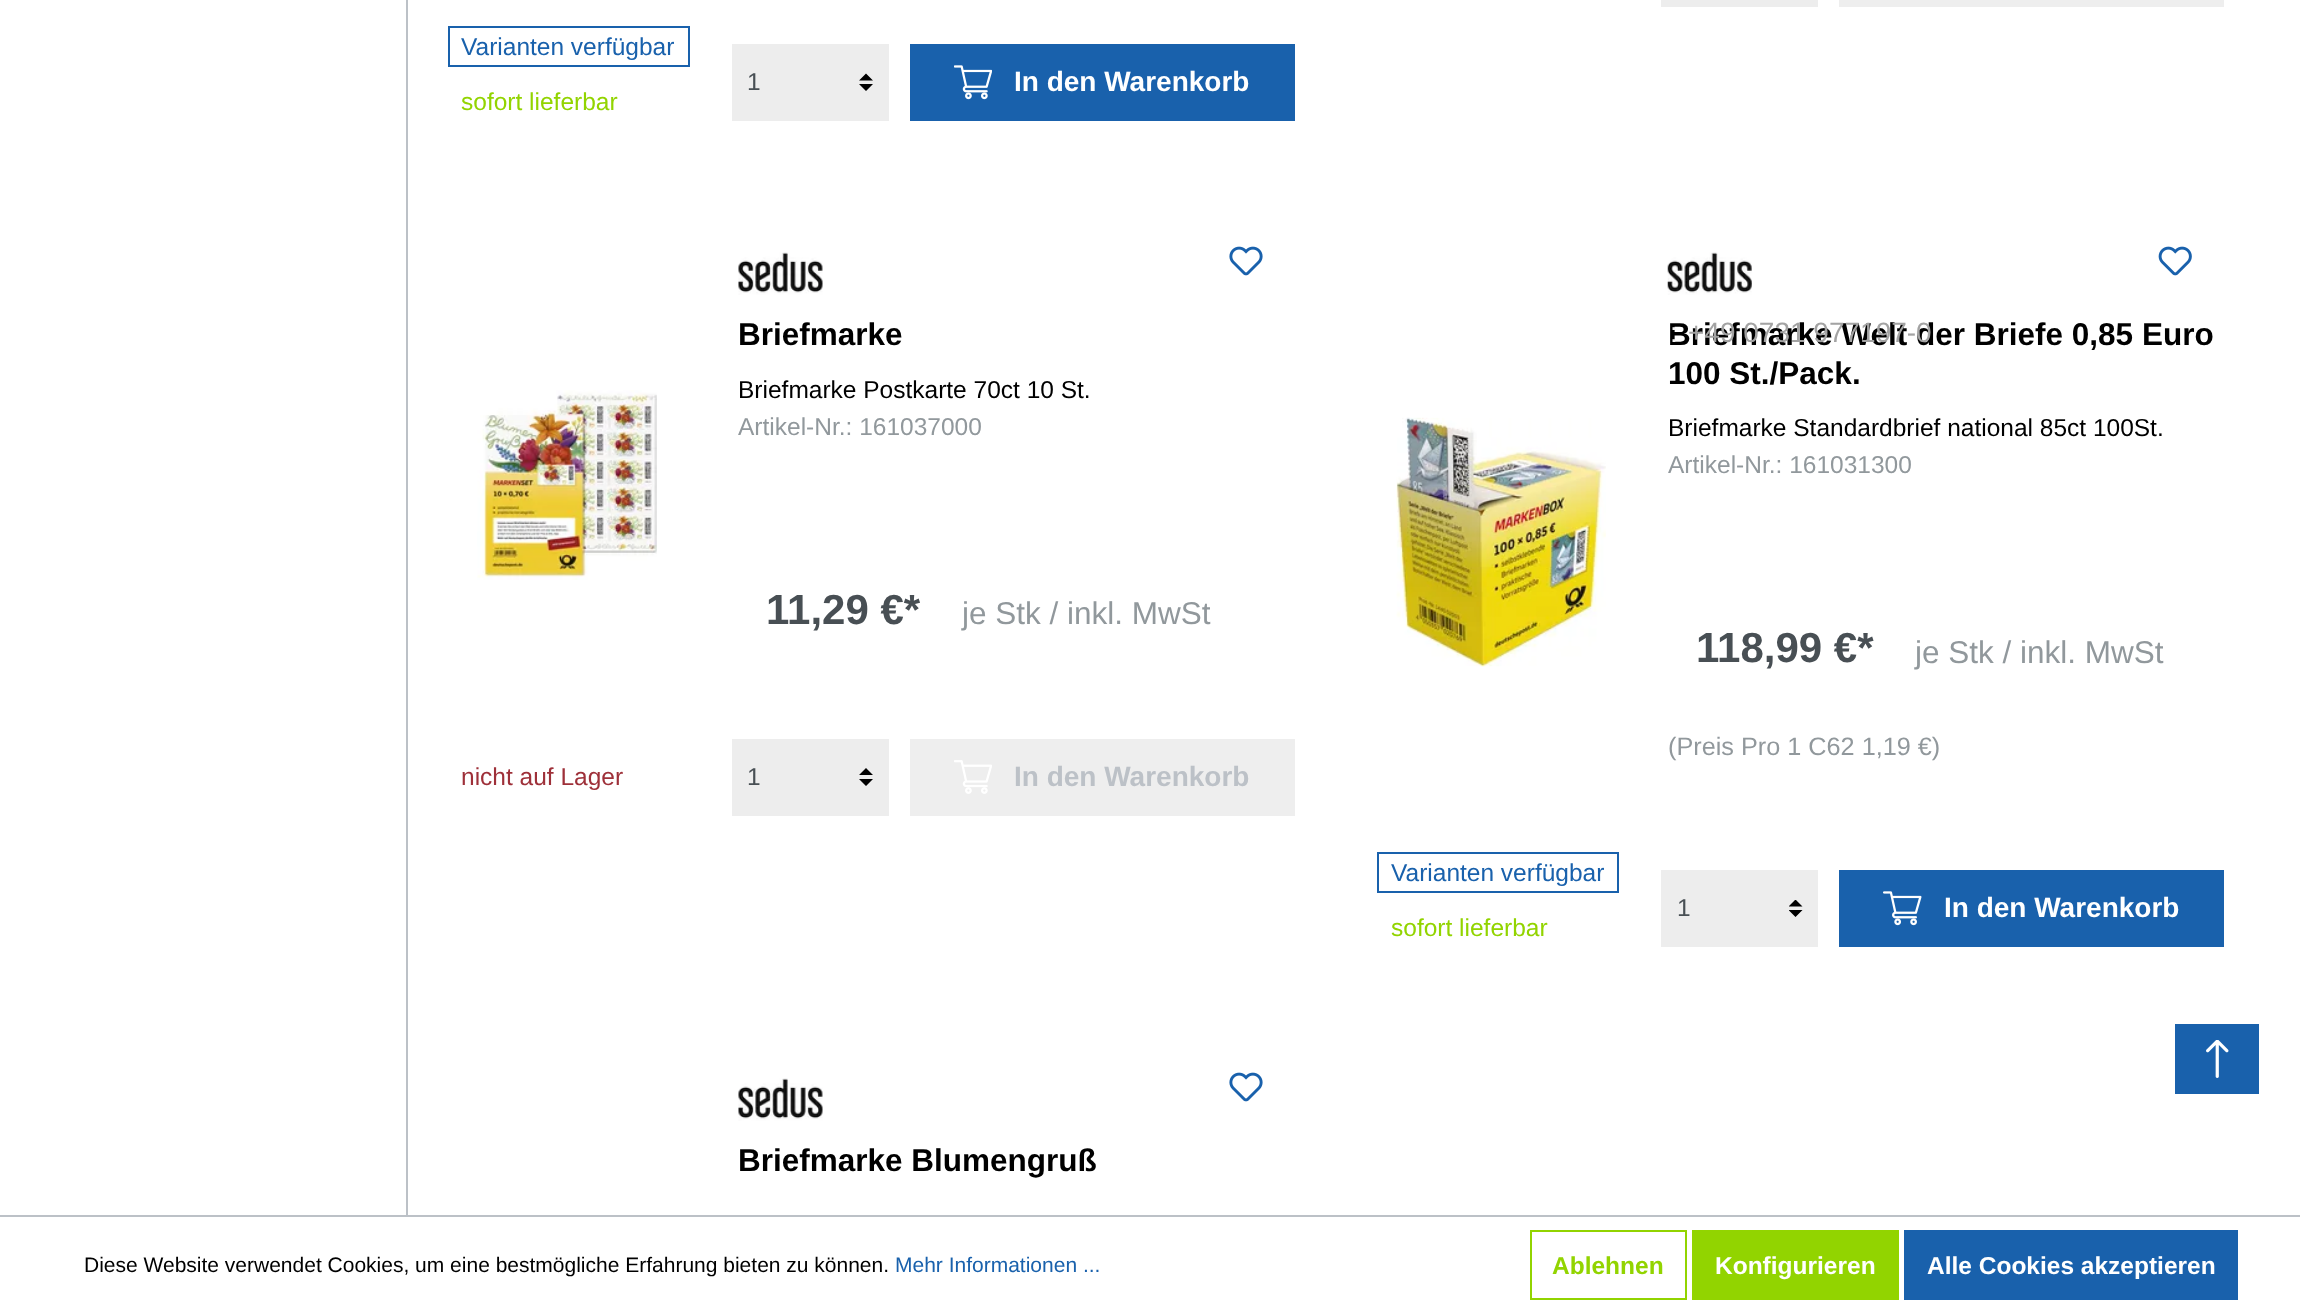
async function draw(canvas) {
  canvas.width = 2300
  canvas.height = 1313
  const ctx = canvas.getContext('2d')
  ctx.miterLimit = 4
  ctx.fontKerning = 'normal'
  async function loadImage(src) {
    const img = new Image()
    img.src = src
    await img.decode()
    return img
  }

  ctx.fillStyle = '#fff'
  ctx.fillRect(0, 0, 2300, 1313)
  ctx.fillStyle = '#bcc1c7'
  ctx.fillRect(406, 0, 2, 1215)
  ctx.fillStyle = '#ededed'
  ctx.fillRect(1661, 0, 157, 7)
  ctx.fillStyle = '#eee'
  ctx.fillRect(1839, 0, 385, 7)
  ctx.strokeStyle = '#1961ac'
  ctx.lineWidth = 2
  ctx.strokeRect(449, 27, 240, 39)
  ctx.font = '24.5px Liberation Sans'
  ctx.fillStyle = '#1961ac'
  ctx.fillText('Varianten verfügbar', 461, 55)
  ctx.fillStyle = '#92d400'
  ctx.fillText('sofort lieferbar', 461, 110)
  ctx.fillStyle = '#ededed'
  ctx.fillRect(732, 44, 157, 77)
  ctx.fillStyle = '#000'
  ctx.beginPath()
  ctx.moveTo(866, 73.5)
  ctx.lineTo(859, 80.5)
  ctx.lineTo(873, 80.5)
  ctx.closePath()
  ctx.moveTo(866, 91)
  ctx.lineTo(859, 84)
  ctx.lineTo(873, 84)
  ctx.closePath()
  ctx.fill()
  ctx.letterSpacing = '2px'
  ctx.fillStyle = '#484f54'
  ctx.fillText('1', 747, 90)
  ctx.fillStyle = '#1961ac'
  ctx.fillRect(910, 44, 385, 77)
  ctx.drawImage(await loadImage('image0.png'), 954, 65, 38, 35)
  ctx.letterSpacing = '0px'
  ctx.font = 'bold 28px Liberation Sans'
  ctx.fillStyle = '#fff'
  ctx.fillText('In den Warenkorb', 1014, 91)
  ctx.drawImage(await loadImage('image1.png'), 477, 390, 180, 190)
  ctx.drawImage(await loadImage('image2.png'), 738, 252, 85, 43)
  ctx.drawImage(await loadImage('image3.png'), 1229, 246, 34, 30)
  ctx.font = 'bold 31.5px Liberation Sans'
  ctx.fillStyle = '#000'
  ctx.fillText('Briefmarke', 738, 345)
  ctx.font = '24.5px Liberation Sans'
  ctx.fillText('Briefmarke Postkarte 70ct 10 St.', 738, 398)
  ctx.fillStyle = '#91989c'
  ctx.fillText('Artikel-Nr.: 161037000', 738, 435)
  ctx.font = 'bold 42px Liberation Sans'
  ctx.fillStyle = '#484f54'
  ctx.fillText('11,29 €*', 766, 624)
  ctx.font = '31.5px Liberation Sans'
  ctx.fillStyle = '#91989c'
  ctx.fillText('je Stk / inkl. MwSt', 962, 624)
  ctx.font = '24.5px Liberation Sans'
  ctx.fillStyle = '#9e3039'
  ctx.fillText('nicht auf Lager', 461, 785)
  ctx.fillStyle = '#ededed'
  ctx.fillRect(732, 739, 157, 77)
  ctx.fillStyle = '#000'
  ctx.beginPath()
  ctx.moveTo(866, 768)
  ctx.lineTo(859, 775)
  ctx.lineTo(873, 775)
  ctx.closePath()
  ctx.moveTo(866, 786)
  ctx.lineTo(859, 779)
  ctx.lineTo(873, 779)
  ctx.closePath()
  ctx.fill()
  ctx.letterSpacing = '2px'
  ctx.fillStyle = '#484f54'
  ctx.fillText('1', 747, 785)
  ctx.fillStyle = '#eee'
  ctx.fillRect(910, 739, 385, 77)
  ctx.drawImage(await loadImage('image4.png'), 954, 760, 38, 34)
  ctx.letterSpacing = '0px'
  ctx.font = 'bold 28px Liberation Sans'
  ctx.fillStyle = '#bcc1c7'
  ctx.fillText('In den Warenkorb', 1014, 786)
  ctx.drawImage(await loadImage('image5.png'), 1396, 417, 210, 250)
  ctx.drawImage(await loadImage('image6.png'), 1667, 252, 85, 43)
  ctx.drawImage(await loadImage('image7.png'), 2158, 246, 34, 30)
  ctx.font = 'bold 31.5px Liberation Sans'
  ctx.fillStyle = '#000'
  ctx.fillText('Briefmarke Welt der Briefe 0,85 Euro', 1668, 345)
  ctx.fillText('100 St./Pack.', 1668, 384)
  ctx.font = '24.5px Liberation Sans'
  ctx.fillText('Briefmarke Standardbrief national 85ct 100St.', 1668, 436)
  ctx.fillStyle = '#91989c'
  ctx.fillText('Artikel-Nr.: 161031300', 1668, 473)
  ctx.font = 'bold 42px Liberation Sans'
  ctx.fillStyle = '#484f54'
  ctx.fillText('118,99 €*', 1696, 662)
  ctx.font = '31.5px Liberation Sans'
  ctx.fillStyle = '#91989c'
  ctx.fillText('je Stk / inkl. MwSt', 1915, 663)
  ctx.font = '25.25px Liberation Sans'
  ctx.fillText('(Preis Pro 1 C62 1,19 €)', 1668, 755)
  ctx.strokeRect(1378, 853, 240, 39)
  ctx.font = '24.5px Liberation Sans'
  ctx.fillStyle = '#1961ac'
  ctx.fillText('Varianten verfügbar', 1391, 881)
  ctx.fillStyle = '#92d400'
  ctx.fillText('sofort lieferbar', 1391, 936)
  ctx.fillStyle = '#ededed'
  ctx.fillRect(1661, 870, 157, 77)
  ctx.save()
  ctx.beginPath()
  ctx.rect(1789, 900, 14, 17)
  ctx.clip()
  ctx.fillStyle = '#000'
  ctx.beginPath()
  ctx.moveTo(1795.5, 899.5)
  ctx.lineTo(1788.5, 906.5)
  ctx.lineTo(1802.5, 906.5)
  ctx.closePath()
  ctx.moveTo(1795.5, 917)
  ctx.lineTo(1788.5, 910)
  ctx.lineTo(1802.5, 910)
  ctx.closePath()
  ctx.fill()
  ctx.restore()
  ctx.letterSpacing = '2px'
  ctx.fillStyle = '#484f54'
  ctx.fillText('1', 1677, 916)
  ctx.fillStyle = '#1961ac'
  ctx.fillRect(1839, 870, 385, 77)
  ctx.drawImage(await loadImage('image8.png'), 1883, 891, 39, 35)
  ctx.letterSpacing = '0px'
  ctx.font = 'bold 28px Liberation Sans'
  ctx.fillStyle = '#fff'
  ctx.fillText('In den Warenkorb', 1944, 917)
  ctx.drawImage(await loadImage('image9.png'), 738, 1078, 85, 43)
  ctx.drawImage(await loadImage('image3.png'), 1229, 1072, 34, 30)
  ctx.font = 'bold 31.5px Liberation Sans'
  ctx.fillStyle = '#000'
  ctx.fillText('Briefmarke Blumengruß', 738, 1171)
  ctx.letterSpacing = '1px'
  ctx.font = '28px Liberation Sans'
  ctx.fillStyle = '#f3f3f3'
  ctx.fillText(':', 1670, 342)
  ctx.letterSpacing = '0px'
  ctx.fillStyle = '#a3a3a3'
  ctx.fillText('+49 0731 977197-0', 1688, 342)
  ctx.fillStyle = '#1961ac'
  ctx.fillRect(2175, 1024, 84, 70)
  ctx.drawImage(await loadImage('image10.png'), 2206, 1040, 23, 38)
  ctx.fillStyle = '#bcc1c7'
  ctx.fillRect(0, 1215, 2300, 2)
  ctx.font = '21px Liberation Sans'
  ctx.fillStyle = '#000'
  ctx.fillText('Diese Website verwendet Cookies, um eine bestmögliche Erfahrung bieten zu können.', 84, 1272)
  ctx.fillStyle = '#1961ac'
  ctx.fillText('Mehr Informationen ...', 895, 1272)
  ctx.strokeStyle = '#92d400'
  ctx.strokeRect(1531, 1231, 155, 68)
  ctx.font = 'bold 24.5px Liberation Sans'
  ctx.fillStyle = '#92d400'
  ctx.fillText('Ablehnen', 1552, 1274)
  ctx.fillRect(1692, 1230, 207, 70)
  ctx.fillStyle = '#fff'
  ctx.fillText('Konfigurieren', 1715, 1274)
  ctx.fillStyle = '#1961ac'
  ctx.fillRect(1904, 1230, 334, 70)
  ctx.fillStyle = '#fff'
  ctx.fillText('Alle Cookies akzeptieren', 1927, 1274)
}

draw(document.querySelector('canvas'))
